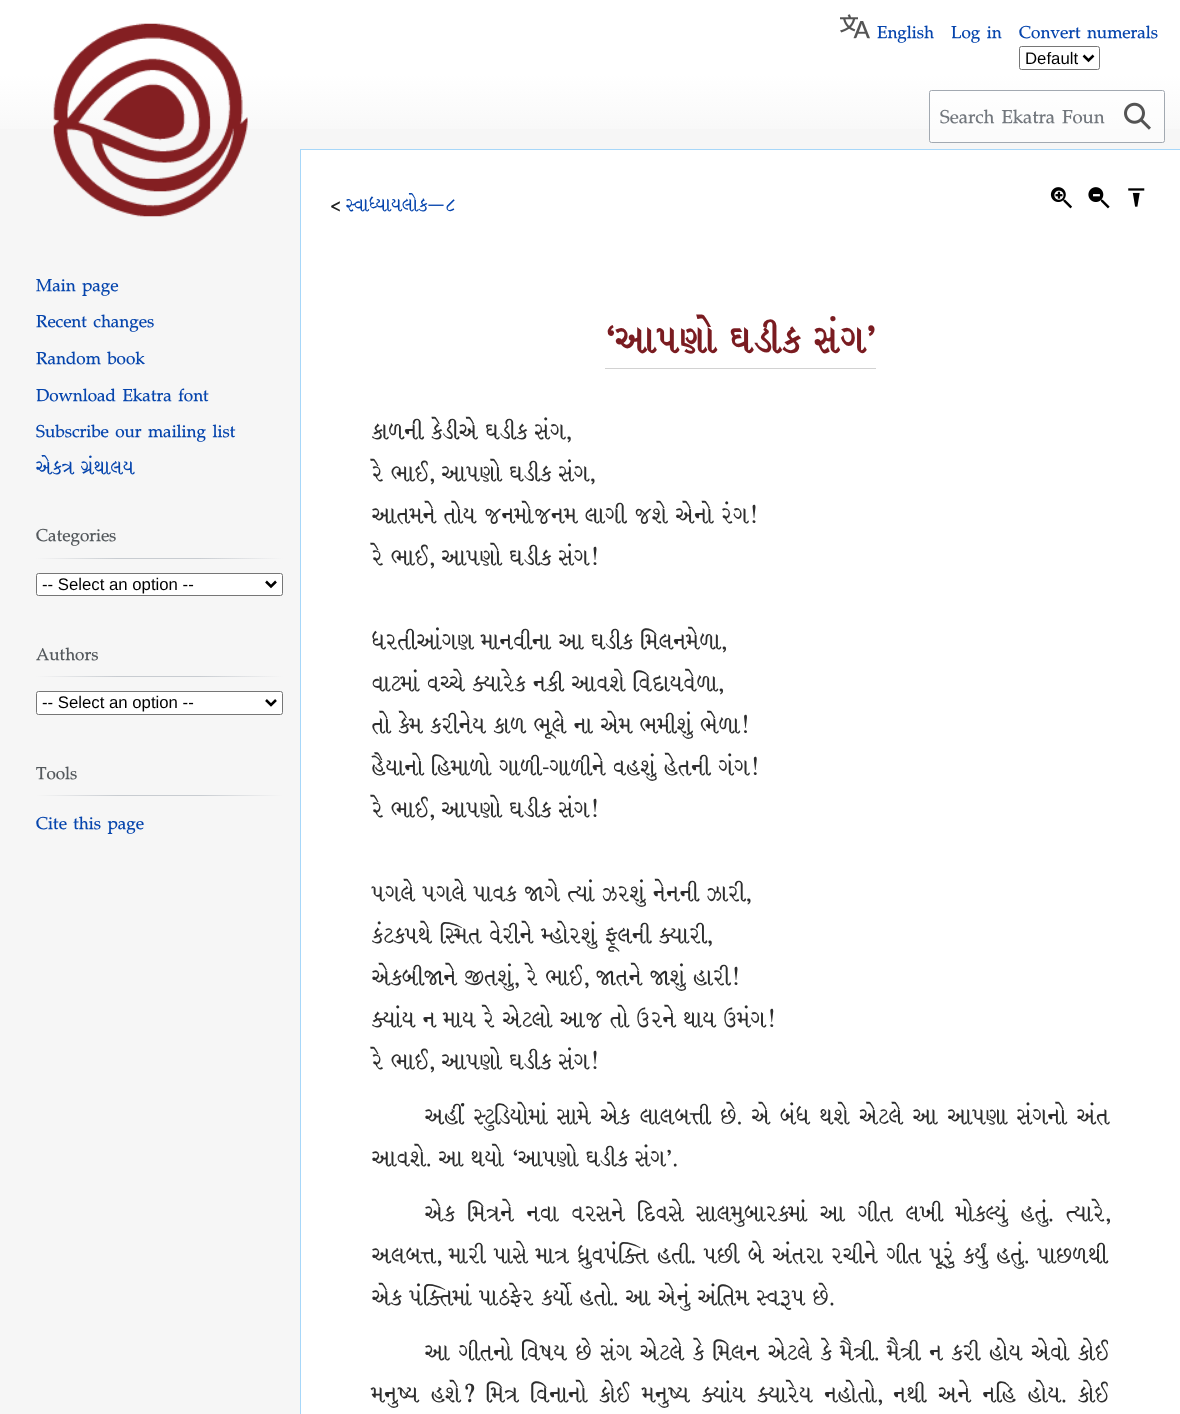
async function draw(canvas) {
  canvas.width = 1180
  canvas.height = 1414
  const ctx = canvas.getContext('2d')
  ctx.miterLimit = 4
  ctx.fontKerning = 'normal'
  async function loadImage(src) {
    const img = new Image()
    img.src = src
    await img.decode()
    return img
  }
  let gradient

  ctx.fillStyle = '#f6f6f6'
  ctx.fillRect(0, 0, 1180, 1414)
  gradient = ctx.createLinearGradient(590, 0, 590, 150)
  gradient.addColorStop(0.5, '#fff')
  gradient.addColorStop(1, '#f6f6f6')
  ctx.fillStyle = gradient
  ctx.fillRect(0, 0, 1180, 129)
  ctx.drawImage(await loadImage('image0.png'), 840, 14, 30, 25)
  ctx.font = '22.5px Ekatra'
  ctx.fillStyle = '#0645ad'
  ctx.fillText('English', 877, 38)
  ctx.fillText('Log in', 951, 38)
  ctx.fillText('Convert numerals', 1019, 38)
  ctx.beginPath()
  ctx.roundRect(1019.5, 46.5, 80, 23, 2)
  ctx.strokeStyle = '#767676'
  ctx.stroke()
  ctx.beginPath()
  ctx.moveTo(1083.5, 55.5)
  ctx.lineTo(1088.5, 60.5)
  ctx.lineTo(1093.5, 55.5)
  ctx.strokeStyle = '#000'
  ctx.lineWidth = 2.5
  ctx.stroke()
  ctx.font = '16.75px Liberation Sans'
  ctx.fillStyle = '#000'
  ctx.fillText('Default', 1025, 64)
  ctx.fillStyle = '#ffffff80'
  ctx.beginPath()
  ctx.roundRect(929.5, 90.5, 235, 52, 2)
  ctx.fill()
  ctx.strokeStyle = '#a2a9b1'
  ctx.lineWidth = 1
  ctx.stroke()
  ctx.font = '24.5px Ekatra'
  ctx.fillStyle = '#72777d'
  ctx.fillText('Search Ekatra Foun', 940, 123)
  ctx.drawImage(await loadImage('image1.png'), 1124, 102, 27, 28)
  ctx.drawImage(await loadImage('image2.png'), 53, 23, 195, 194)
  ctx.font = '22.5px Ekatra'
  ctx.fillStyle = '#0645ad'
  ctx.fillText('Main page', 36, 291)
  ctx.fillText('Recent changes', 36, 327)
  ctx.fillText('Random book', 36, 364)
  ctx.fillText('Download Ekatra font', 36, 401)
  ctx.fillText('Subscribe our mailing list', 36, 437)
  ctx.fillText('એકત્ર ગ્રંથાલય', 36, 474)
  gradient = ctx.createLinearGradient(36, 558, 283, 558)
  gradient.addColorStop(0, '#f6f6f6')
  gradient.addColorStop(0.33, '#c8ccd1')
  gradient.addColorStop(0.66, '#c8ccd1')
  gradient.addColorStop(1, '#f6f6f6')
  ctx.fillStyle = gradient
  ctx.fillRect(36, 558, 247, 1)
  ctx.fillStyle = '#54595d'
  ctx.fillText('Categories', 36, 541)
  ctx.fillStyle = '#fff'
  ctx.beginPath()
  ctx.roundRect(36.5, 573.5, 246, 22, 2)
  ctx.fill()
  ctx.strokeStyle = '#767676'
  ctx.stroke()
  ctx.beginPath()
  ctx.moveTo(266, 581.5)
  ctx.lineTo(271, 586.5)
  ctx.lineTo(276, 581.5)
  ctx.strokeStyle = '#000'
  ctx.lineWidth = 2.5
  ctx.stroke()
  ctx.font = '16.75px Liberation Sans'
  ctx.fillStyle = '#000'
  ctx.fillText('-- Select an option --', 42, 590)
  gradient = ctx.createLinearGradient(36, 677, 283, 677)
  gradient.addColorStop(0, '#f6f6f6')
  gradient.addColorStop(0.33, '#c8ccd1')
  gradient.addColorStop(0.66, '#c8ccd1')
  gradient.addColorStop(1, '#f6f6f6')
  ctx.fillStyle = gradient
  ctx.fillRect(36, 676, 247, 1)
  ctx.font = '22.5px Ekatra'
  ctx.fillStyle = '#54595d'
  ctx.fillText('Authors', 36, 660)
  ctx.fillStyle = '#fff'
  ctx.beginPath()
  ctx.roundRect(36.5, 691.5, 246, 23, 2)
  ctx.fill()
  ctx.strokeStyle = '#767676'
  ctx.lineWidth = 1
  ctx.stroke()
  ctx.beginPath()
  ctx.moveTo(266, 700)
  ctx.lineTo(271, 705)
  ctx.lineTo(276, 700)
  ctx.strokeStyle = '#000'
  ctx.lineWidth = 2.5
  ctx.stroke()
  ctx.font = '16.75px Liberation Sans'
  ctx.fillStyle = '#000'
  ctx.fillText('-- Select an option --', 42, 708)
  gradient = ctx.createLinearGradient(36, 796, 283, 796)
  gradient.addColorStop(0, '#f6f6f6')
  gradient.addColorStop(0.33, '#c8ccd1')
  gradient.addColorStop(0.66, '#c8ccd1')
  gradient.addColorStop(1, '#f6f6f6')
  ctx.fillStyle = gradient
  ctx.fillRect(36, 795, 247, 1)
  ctx.font = '22.5px Ekatra'
  ctx.fillStyle = '#54595d'
  ctx.fillText('Tools', 36, 779)
  ctx.fillStyle = '#0645ad'
  ctx.fillText('Cite this page', 36, 829)
  ctx.fillStyle = '#fff'
  ctx.fillRect(301, 150, 879, 1264)
  ctx.fillStyle = '#a7d7f9'
  ctx.fillRect(300, 149, 880, 1)
  ctx.fillRect(300, 149, 1, 1265)
  ctx.font = '21.25px Ekatra'
  ctx.fillStyle = '#202122'
  ctx.fillText('<', 331, 211)
  ctx.fillStyle = '#0645ad'
  ctx.fillText('સ્વાધ્યાયલોક—૮', 346, 211)
  ctx.drawImage(await loadImage('image3.png'), 1050, 187, 22, 22)
  ctx.drawImage(await loadImage('image4.png'), 1088, 187, 22, 22)
  ctx.drawImage(await loadImage('image5.png'), 1128, 188, 17, 19)
  ctx.font = 'bold 42px Ekatra'
  ctx.fillStyle = '#7a1c21'
  ctx.fillText('‘આપણો ઘડીક સંગ’', 605, 352)
  ctx.fillStyle = '#d2d2d2'
  ctx.fillRect(605, 368, 271, 1)
  ctx.font = '26.25px Ekatra'
  ctx.fillStyle = '#2e2e2e'
  ctx.fillText('કાળની કેડીએ ઘડીક સંગ,', 372, 439)
  ctx.fillText('રે ભાઈ, આપણો ઘડીક સંગ,', 372, 481)
  ctx.fillText('આતમને તોય જનમોજનમ લાગી જશે એનો રંગ!', 372, 523)
  ctx.fillText('રે ભાઈ, આપણો ઘડીક સંગ!', 372, 565)
  ctx.fillText('ધરતીઆંગણ માનવીના આ ઘડીક મિલનમેળા,', 372, 649)
  ctx.fillText('વાટમાં વચ્ચે ક્યારેક નકી આવશે વિદાયવેળા,', 372, 691)
  ctx.fillText('તો કેમ કરીનેય કાળ ભૂલે ના એમ ભમીશું ભેળા!', 372, 733)
  ctx.fillText('હૈયાનો હિમાળો ગાળી-ગાળીને વહશું હેતની ગંગ!', 372, 775)
  ctx.fillText('રે ભાઈ, આપણો ઘડીક સંગ!', 372, 817)
  ctx.fillText('પગલે પગલે પાવક જાગે ત્યાં ઝરશું નેનની ઝારી,', 372, 901)
  ctx.fillText('કંટકપથે સ્મિત વેરીને મ્હોરશું ફૂલની ક્યારી,', 372, 943)
  ctx.fillText('એકબીજાને જીતશું, રે ભાઈ, જાતને જાશું હારી!', 372, 985)
  ctx.fillText('ક્યાંય ન માય રે એટલો આજ તો ઉરને થાય ઉમંગ!', 372, 1027)
  ctx.fillText('રે ભાઈ, આપણો ઘડીક સંગ!', 372, 1069)
  ctx.wordSpacing = '2.1px'
  ctx.fillText('અહીં સ્ટુડિયોમાં સામે એક લાલબત્તી છે. એ બંધ થશે એટલે આ આપણા સંગનો અંત', 425, 1124)
  ctx.wordSpacing = '0px'
  ctx.fillText('આવશે. આ થયો ‘આપણો ઘડીક સંગ’.', 372, 1166)
  ctx.wordSpacing = '5.25px'
  ctx.fillText('એક મિત્રને નવા વરસને દિવસે સાલમુબારકમાં આ ગીત લખી મોકલ્યું હતું. ત્યારે,', 425, 1221)
  ctx.wordSpacing = '1px'
  ctx.fillText('અલબત્ત, મારી પાસે માત્ર ધ્રુવપંક્તિ હતી. પછી બે અંતરા રચીને ગીત પૂરું કર્યું હતું. પાછળથી', 372, 1263)
  ctx.wordSpacing = '0px'
  ctx.fillText('એક પંક્તિમાં પાઠફેર કર્યો હતો. આ એનું અંતિમ સ્વરૂપ છે.', 372, 1305)
  ctx.wordSpacing = '1.2px'
  ctx.fillText('આ ગીતનો વિષય છે સંગ એટલે કે મિલન એટલે કે મૈત્રી. મૈત્રી ન કરી હોય એવો કોઈ', 425, 1360)
  ctx.wordSpacing = '4.25px'
  ctx.fillText('મનુષ્ય હશે? મિત્ર વિનાનો કોઈ મનુષ્ય ક્યાંય ક્યારેય નહોતો, નથી અને નહિ હોય. કોઈ', 372, 1402)
}

draw(document.querySelector('canvas'))
